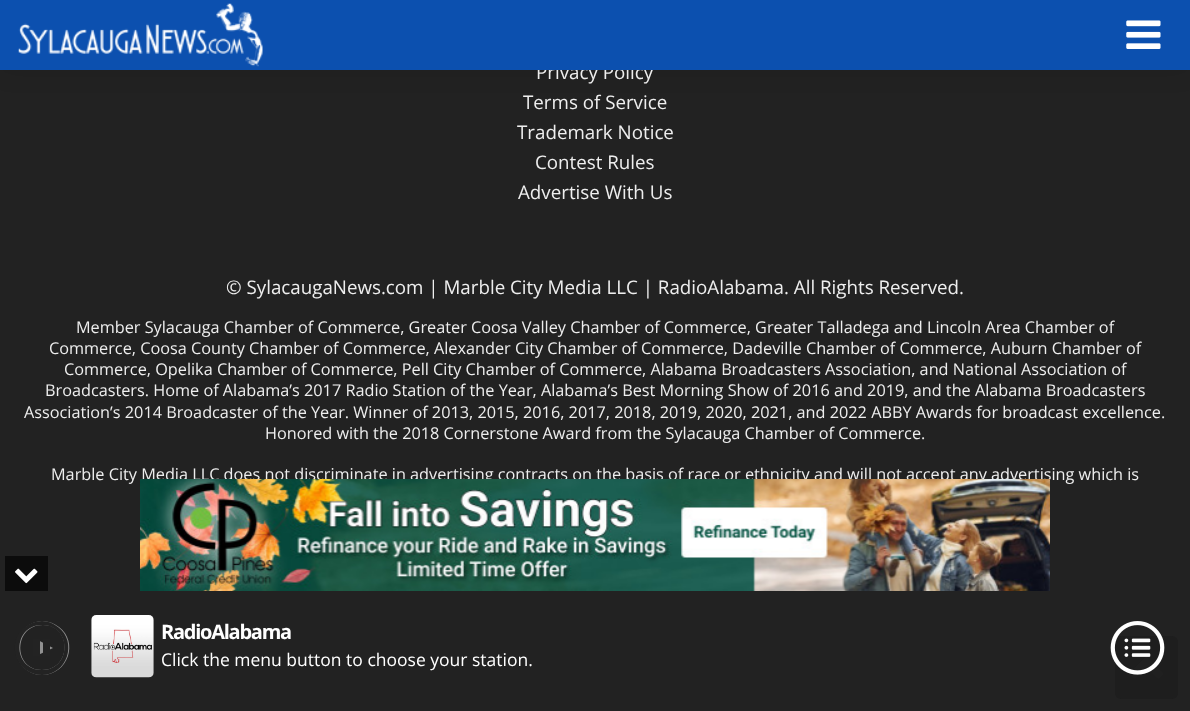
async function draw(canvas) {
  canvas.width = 1190
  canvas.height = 711
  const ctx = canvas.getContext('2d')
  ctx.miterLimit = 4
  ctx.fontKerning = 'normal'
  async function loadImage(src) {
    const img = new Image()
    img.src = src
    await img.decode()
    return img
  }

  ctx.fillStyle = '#222'
  ctx.fillRect(0, 0, 1190, 711)
  ctx.fillStyle = '#0000001a'
  ctx.filter = 'blur(12.5px)'
  ctx.beginPath()
  ctx.rect(0, 0, 1190, 70)
  ctx.fill()
  ctx.filter = 'none'
  ctx.font = '18.75px Open Sans'
  ctx.fillStyle = '#eee'
  ctx.fillText('Privacy Policy', 536, 79)
  ctx.fillStyle = '#0c50af'
  ctx.fillRect(0, 0, 1190, 70)
  ctx.drawImage(await loadImage('image0.png'), 18, 3, 245, 64)
  ctx.drawImage(await loadImage('image1.png'), 1126, 20, 35, 29)
  ctx.fillStyle = '#eee'
  ctx.fillText('Terms of Service', 523, 109)
  ctx.fillText('Trademark Notice', 517, 139)
  ctx.fillText('Contest Rules', 535, 169)
  ctx.fillText('Advertise With Us', 518, 199)
  ctx.fillText('© SylacaugaNews.com | Marble City Media LLC | RadioAlabama. All Rights Reserved.', 226, 294)
  ctx.font = '16.25px Open Sans'
  ctx.fillText('Member Sylacauga Chamber of Commerce, Greater Coosa Valley Chamber of Commerce, Greater Talladega and Lincoln Area Chamber of', 76, 333)
  ctx.fillText('Commerce, Coosa County Chamber of Commerce, Alexander City Chamber of Commerce, Dadeville Chamber of Commerce, Auburn Chamber of', 49, 354)
  ctx.fillText('Commerce, Opelika Chamber of Commerce, Pell City Chamber of Commerce, Alabama Broadcasters Association, and National Association of', 64, 375)
  ctx.fillText('Broadcasters. Home of Alabama’s 2017 Radio Station of the Year, Alabama’s Best Morning Show of 2016 and 2019, and the Alabama Broadcasters', 45, 396)
  ctx.fillText('Association’s 2014 Broadcaster of the Year. Winner of 2013, 2015, 2016, 2017, 2018, 2019, 2020, 2021, and 2022 ABBY Awards for broadcast excellence.', 24, 418)
  ctx.fillText('Honored with the 2018 Cornerstone Award from the Sylacauga Chamber of Commerce.', 265, 439)
  ctx.fillText('Marble City Media LLC does not discriminate in advertising contracts on the basis of race or ethnicity and will not accept any advertising which is', 51, 480)
  ctx.fillStyle = '#1e1e1e'
  ctx.beginPath()
  ctx.roundRect(1115, 636, 63, 63, 6)
  ctx.fill()
  ctx.drawImage(await loadImage('image2.png'), 1129, 657, 34, 22)
  ctx.fillStyle = '#0c0c0c'
  ctx.fillRect(5, 556, 43, 35)
  ctx.drawImage(await loadImage('image3.png'), 15, 568, 23, 16)
  ctx.drawImage(await loadImage('image4.png'), 140, 479, 910, 112)
  ctx.fillStyle = '#919191'
  ctx.beginPath()
  ctx.moveTo(42, 621)
  ctx.bezierCurveTo(37, 621, 31, 623, 26, 627)
  ctx.bezierCurveTo(6, 642, 17, 675, 42, 675)
  ctx.bezierCurveTo(68, 675, 79, 642, 59, 627)
  ctx.bezierCurveTo(54, 623, 48, 621, 42, 621)
  ctx.closePath()
  ctx.moveTo(42, 670)
  ctx.bezierCurveTo(13, 670, 13, 625, 43, 625)
  ctx.bezierCurveTo(72, 625, 72, 670, 42, 670)
  ctx.closePath()
  ctx.moveTo(36, 656)
  ctx.lineTo(53, 648)
  ctx.lineTo(36, 639)
  ctx.closePath()
  ctx.fill()
  ctx.fillStyle = '#232323'
  ctx.beginPath()
  ctx.moveTo(42, 621)
  ctx.bezierCurveTo(36, 621, 30, 623, 25, 627)
  ctx.bezierCurveTo(5, 642, 16, 675, 42, 675)
  ctx.bezierCurveTo(67, 675, 78, 642, 58, 627)
  ctx.bezierCurveTo(53, 623, 48, 621, 42, 621)
  ctx.closePath()
  ctx.moveTo(42, 670)
  ctx.bezierCurveTo(12, 670, 12, 625, 42, 625)
  ctx.bezierCurveTo(72, 625, 72, 670, 42, 670)
  ctx.closePath()
  ctx.moveTo(43, 656)
  ctx.lineTo(50, 656)
  ctx.lineTo(50, 639)
  ctx.lineTo(43, 639)
  ctx.closePath()
  ctx.moveTo(33, 639)
  ctx.lineTo(40, 639)
  ctx.lineTo(40, 656)
  ctx.lineTo(33, 656)
  ctx.closePath()
  ctx.fill()
  ctx.drawImage(await loadImage('image5.png'), 91, 615, 63, 63)
  ctx.letterSpacing = '-1.25px'
  ctx.font = 'bold 20px Open Sans'
  ctx.fillStyle = '#fff'
  ctx.fillText('RadioAlabama', 161, 639)
  ctx.letterSpacing = '0px'
  ctx.font = '17.5px Open Sans'
  ctx.fillText('Click the menu button to choose your station.', 161, 666)
  ctx.drawImage(await loadImage('image6.png'), 1110, 621, 55, 54)
}

draw(document.querySelector('canvas'))
